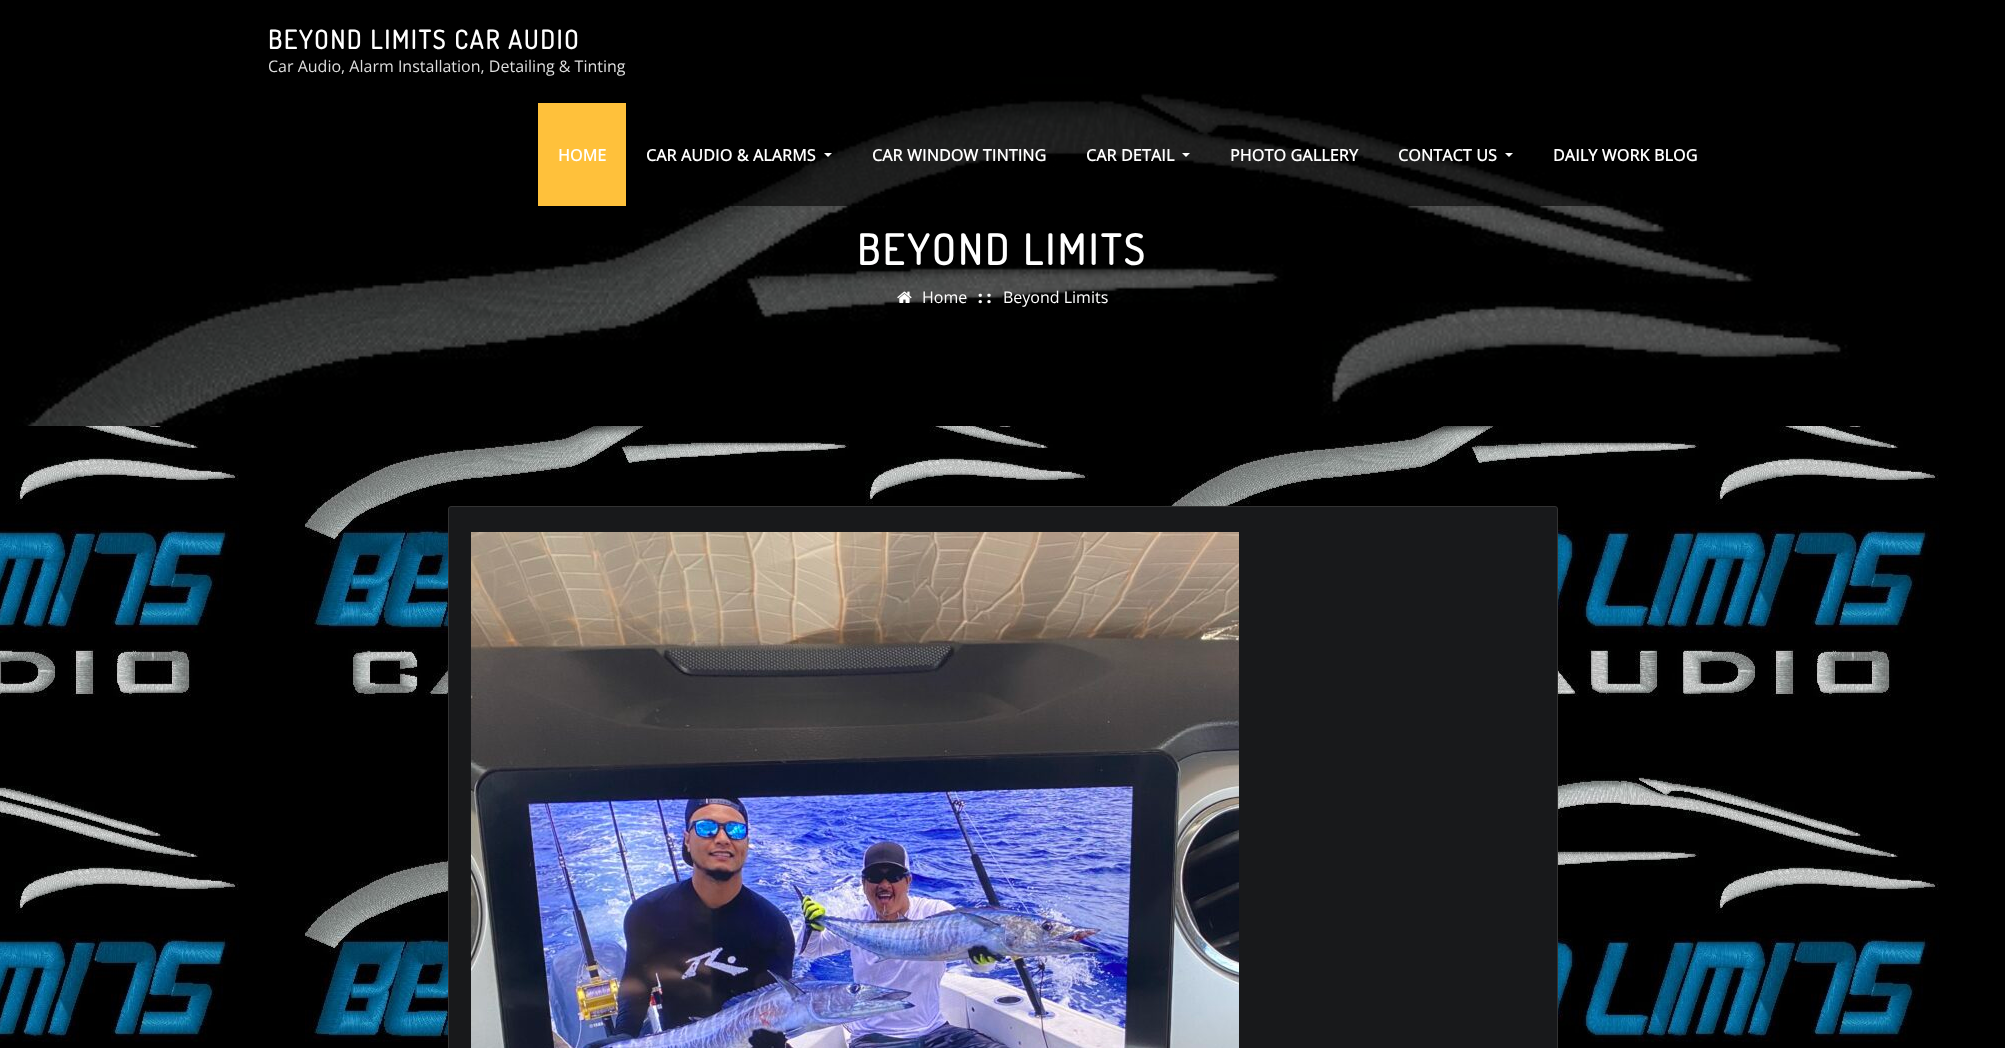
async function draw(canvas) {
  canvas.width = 2005
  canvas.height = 1048
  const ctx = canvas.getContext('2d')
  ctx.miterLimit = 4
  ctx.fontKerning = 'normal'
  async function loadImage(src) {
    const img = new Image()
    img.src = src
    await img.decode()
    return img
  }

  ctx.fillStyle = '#fff'
  ctx.fillRect(0, 0, 2005, 1048)
  ctx.drawImage(await loadImage('image0.png'), 0, 426, 2005, 622)
  ctx.drawImage(await loadImage('image1.png'), 0, 0, 2005, 426)
  ctx.fillStyle = '#00000099'
  ctx.fillRect(717, 94, 898, 112)
  ctx.letterSpacing = '2px'
  ctx.font = 'bold 25.6px Dosis'
  ctx.fillStyle = '#fff'
  ctx.fillText('BEYOND LIMITS CAR AUDIO', 268, 49)
  ctx.letterSpacing = '0px'
  ctx.font = '16px Open Sans'
  ctx.fillStyle = '#ddd'
  ctx.fillText('Car Audio, Alarm Installation, Detailing & Tinting', 268, 72)
  ctx.fillStyle = '#ffc13b'
  ctx.fillRect(538, 103, 88, 103)
  ctx.letterSpacing = '0.2px'
  ctx.font = 'bold 16px Open Sans'
  ctx.fillStyle = '#fff'
  ctx.fillText('HOME', 558, 161)
  ctx.fillText('CAR AUDIO & ALARMS', 646, 161)
  ctx.beginPath()
  ctx.moveTo(824, 153)
  ctx.lineTo(832, 153)
  ctx.lineTo(828, 157)
  ctx.closePath()
  ctx.fill()
  ctx.fillText('CAR WINDOW TINTING', 872, 161)
  ctx.fillText('CAR DETAIL', 1086, 161)
  ctx.beginPath()
  ctx.moveTo(1182, 153)
  ctx.lineTo(1190, 153)
  ctx.lineTo(1186, 157)
  ctx.closePath()
  ctx.fill()
  ctx.fillText('PHOTO GALLERY', 1230, 161)
  ctx.fillText('CONTACT US', 1398, 161)
  ctx.beginPath()
  ctx.moveTo(1505, 153)
  ctx.lineTo(1513, 153)
  ctx.lineTo(1509, 157)
  ctx.closePath()
  ctx.fill()
  ctx.fillText('DAILY WORK BLOG', 1553, 161)
  ctx.letterSpacing = '3px'
  ctx.font = 'bold 42px Dosis'
  ctx.fillText('BEYOND LIMITS', 857, 265)
  ctx.drawImage(await loadImage('image2.png'), 897, 291, 15, 12)
  ctx.letterSpacing = '0px'
  ctx.font = '16px Open Sans'
  ctx.fillText('Home', 922, 303)
  ctx.letterSpacing = '2px'
  ctx.font = 'bold 20px Liberation Serif'
  ctx.fillText('::', 977, 303)
  ctx.letterSpacing = '0px'
  ctx.font = '16px Open Sans'
  ctx.fillText('Beyond Limits', 1003, 303)
  ctx.drawImage(await loadImage('image3.png'), 576, 426, 923, 18)
  ctx.fillStyle = '#18191b'
  ctx.beginPath()
  ctx.roundRect(448.5, 506.5, 1109, 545, 2.5)
  ctx.fill()
  ctx.strokeStyle = '#333'
  ctx.stroke()
  ctx.drawImage(await loadImage('image4.png'), 471, 532, 768, 516)
}

draw(document.querySelector('canvas'))
